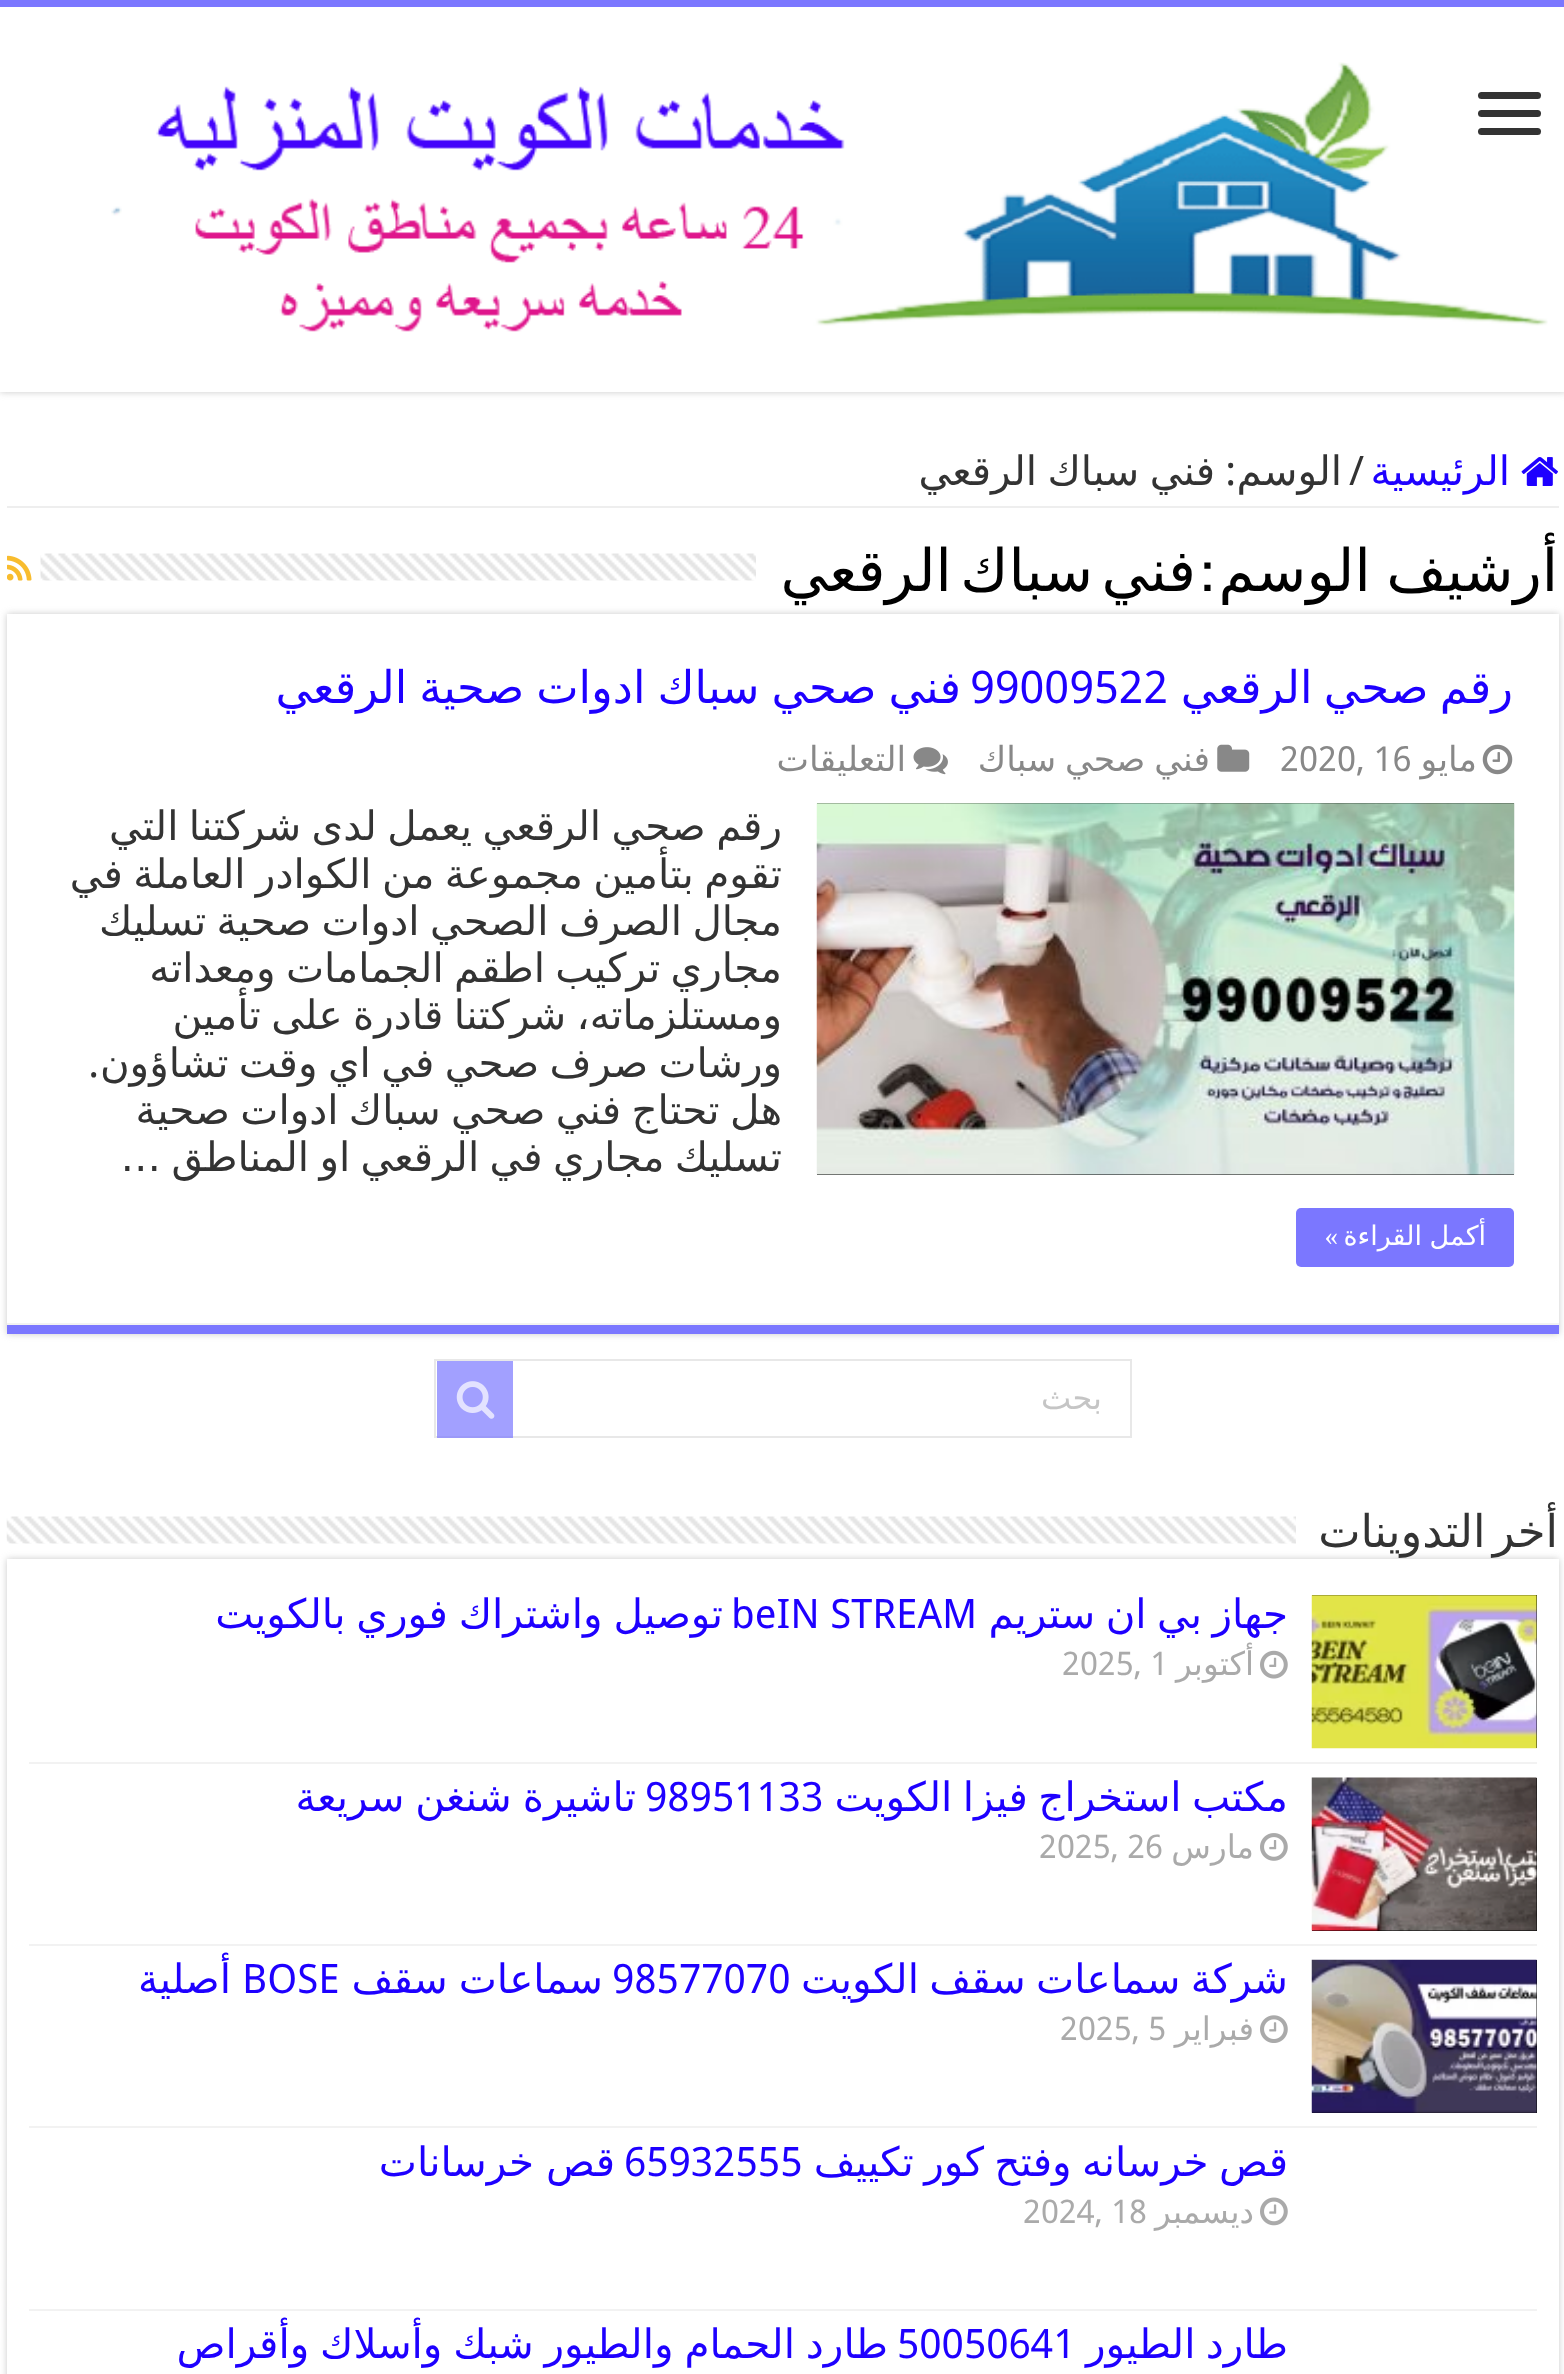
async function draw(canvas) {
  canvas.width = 1564
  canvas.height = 2374
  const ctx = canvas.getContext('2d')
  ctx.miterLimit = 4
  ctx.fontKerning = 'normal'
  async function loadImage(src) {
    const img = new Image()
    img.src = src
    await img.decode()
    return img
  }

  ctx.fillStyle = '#fff'
  ctx.fillRect(0, 0, 1564, 2374)
  ctx.fillStyle = '#cacaca'
  ctx.filter = 'blur(3.5px)'
  ctx.beginPath()
  ctx.rect(0, 0, 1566, 392)
  ctx.fill()
  ctx.filter = 'none'
  ctx.fillStyle = '#fff'
  ctx.fillRect(0, 7, 1564, 385)
  ctx.fillStyle = '#7b77ff'
  ctx.fillRect(0, 0, 1564, 7)
  ctx.drawImage(await loadImage('image0.png'), 111, 62, 1437, 270)
  ctx.fillStyle = '#333'
  ctx.beginPath()
  ctx.roundRect(1478, 92, 63, 7, 3.5)
  ctx.fill()
  ctx.beginPath()
  ctx.roundRect(1478, 110, 63, 7, 3.5)
  ctx.fill()
  ctx.beginPath()
  ctx.roundRect(1478, 128, 63, 7, 3.5)
  ctx.fill()
  ctx.fillStyle = '#eee'
  ctx.fillRect(7, 506, 1552, 2)
  ctx.drawImage(await loadImage('image1.png'), 1521, 457, 37, 29)
  ctx.direction = 'rtl'
  ctx.font = '40.5px DejaVu Sans'
  ctx.fillStyle = '#1e00ff'
  ctx.fillText('الرئيسية', 1510, 485)
  ctx.direction = 'ltr'
  ctx.font = '40.5px Droid Sans'
  ctx.fillStyle = '#333'
  ctx.fillText('/', 1349, 485)
  ctx.direction = 'rtl'
  ctx.font = '40.5px DejaVu Sans'
  ctx.fillText('الوسم', 1342, 485)
  ctx.font = '40.5px Droid Sans'
  ctx.fillText(':', 1236, 485)
  ctx.wordSpacing = '-2.5px'
  ctx.font = '40.5px DejaVu Sans'
  ctx.fillText('فني سباك الرقعي', 1215, 485)
  ctx.fillStyle = '#cacaca'
  ctx.filter = 'blur(3.5px)'
  ctx.beginPath()
  ctx.rect(7, 614, 1552, 720)
  ctx.fill()
  ctx.filter = 'none'
  ctx.wordSpacing = '-3px'
  ctx.font = '58.5px DejaVu Sans'
  ctx.fillStyle = '#000'
  ctx.fillText('أرشيف الوسم', 1558, 591)
  ctx.wordSpacing = '0px'
  ctx.font = 'bold 58.5px Bebas Neue'
  ctx.fillText(':', 1213, 591)
  ctx.wordSpacing = '-10px'
  ctx.font = '58.5px DejaVu Sans'
  ctx.fillText('فني سباك الرقعي', 1196, 591)
  ctx.drawImage(await loadImage('image2.png'), 40, 553, 716, 28)
  ctx.drawImage(await loadImage('image3.png'), 7, 555, 25, 26)
  ctx.fillStyle = '#fff'
  ctx.fillRect(7, 614, 1552, 709)
  ctx.fillStyle = '#7b77ff'
  ctx.fillRect(7, 1325, 1552, 9)
  ctx.fillStyle = '#f2f2f2'
  ctx.fillRect(7, 1323, 1552, 2)
  ctx.wordSpacing = '-3px'
  ctx.font = '45px DejaVu Sans'
  ctx.fillStyle = '#1e00ff'
  ctx.fillText('رقم صحي الرقعي', 1513, 703)
  ctx.wordSpacing = '0px'
  ctx.direction = 'ltr'
  ctx.font = '45px Droid Sans'
  ctx.fillText('99009522', 970, 703)
  ctx.wordSpacing = '-2.25px'
  ctx.direction = 'rtl'
  ctx.font = '45px DejaVu Sans'
  ctx.fillText('فني صحي سباك ادوات صحية الرقعي', 961, 703)
  ctx.drawImage(await loadImage('image4.png'), 1482, 744, 31, 31)
  ctx.wordSpacing = '0px'
  ctx.font = '34.5px DejaVu Sans'
  ctx.fillStyle = '#888'
  ctx.fillText('مايو', 1477, 771)
  ctx.direction = 'ltr'
  ctx.font = '34.5px Droid Sans'
  ctx.fillText('2020, 16', 1280, 771)
  ctx.drawImage(await loadImage('image5.png'), 1217, 744, 33, 28)
  ctx.wordSpacing = '-2px'
  ctx.direction = 'rtl'
  ctx.font = '34.5px DejaVu Sans'
  ctx.fillText('فني صحي سباك', 1210, 771)
  ctx.drawImage(await loadImage('image6.png'), 913, 747, 35, 28)
  ctx.wordSpacing = '0px'
  ctx.fillText('التعليقات', 906, 771)
  ctx.fillStyle = '#000'
  ctx.fillRect(817, 803, 697, 372)
  ctx.drawImage(await loadImage('image7.png'), 816, 803, 699, 372)
  ctx.wordSpacing = '-2.5px'
  ctx.font = '40.5px DejaVu Sans'
  ctx.fillStyle = '#333'
  ctx.fillText('رقم صحي الرقعي يعمل لدى شركتنا التي', 782, 840)
  ctx.fillText('تقوم بتأمين مجموعة من الكوادر العاملة في', 782, 888)
  ctx.fillText('مجال الصرف الصحي ادوات صحية تسليك', 782, 935)
  ctx.fillText('مجاري تركيب اطقم الجمامات ومعداته', 782, 982)
  ctx.fillText('ومستلزماته، شركتنا قادرة على تأمين', 782, 1029)
  ctx.fillText('ورشات صرف صحي في اي وقت تشاؤون', 782, 1077)
  ctx.wordSpacing = '0px'
  ctx.font = '40.5px Droid Sans'
  ctx.fillText('.', 99, 1077)
  ctx.wordSpacing = '-2.5px'
  ctx.font = '40.5px DejaVu Sans'
  ctx.fillText('هل تحتاج فني صحي سباك ادوات صحية', 782, 1124)
  ctx.fillText('تسليك مجاري في الرقعي او المناطق …', 782, 1171)
  ctx.fillStyle = '#7b77ff'
  ctx.beginPath()
  ctx.roundRect(1296, 1208, 218, 59, 5)
  ctx.fill()
  ctx.wordSpacing = '-1px'
  ctx.font = '27px DejaVu Sans'
  ctx.fillStyle = '#fff'
  ctx.fillText('أكمل القراءة', 1486, 1245)
  ctx.wordSpacing = '0px'
  ctx.font = '27px Liberation Serif'
  ctx.fillText('»', 1338, 1245)
  ctx.strokeStyle = '#e8e8e8'
  ctx.lineWidth = 2
  ctx.strokeRect(435, 1360, 696, 77)
  ctx.font = '32px DejaVu Sans'
  ctx.fillStyle = '#c5c5c5'
  ctx.fillText('بحث', 1102, 1409)
  ctx.fillStyle = '#7b77ffb3'
  ctx.fillRect(437, 1361, 76, 77)
  ctx.drawImage(await loadImage('image8.png'), 456, 1381, 39, 38)
  ctx.fillStyle = '#cacaca'
  ctx.filter = 'blur(3.5px)'
  ctx.beginPath()
  ctx.rect(7, 1559, 1552, 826)
  ctx.fill()
  ctx.filter = 'none'
  ctx.wordSpacing = '-7px'
  ctx.font = '45px DejaVu Sans'
  ctx.fillStyle = '#333'
  ctx.fillText('أخر التدوينات', 1558, 1547)
  ctx.drawImage(await loadImage('image9.png'), 6, 1516, 1290, 28)
  ctx.fillStyle = '#fff'
  ctx.fillRect(7, 1559, 1552, 815)
  ctx.fillStyle = '#f2f2f2'
  ctx.fillRect(29, 1762, 1508, 2)
  ctx.fillStyle = '#000'
  ctx.fillRect(1312, 1595, 225, 153)
  ctx.drawImage(await loadImage('image10.png'), 1311, 1595, 226, 154)
  ctx.wordSpacing = '-2.5px'
  ctx.font = '40.5px DejaVu Sans'
  ctx.fillStyle = '#1e00ff'
  ctx.fillText('جهاز بي ان ستريم', 1288, 1628)
  ctx.wordSpacing = '0px'
  ctx.direction = 'ltr'
  ctx.font = '40.5px Droid Sans'
  ctx.fillText('beIN STREAM', 731, 1628)
  ctx.wordSpacing = '-2px'
  ctx.direction = 'rtl'
  ctx.font = '40.5px DejaVu Sans'
  ctx.fillText('توصيل واشتراك فوري بالكويت', 723, 1628)
  ctx.drawImage(await loadImage('image11.png'), 1260, 1650, 28, 29)
  ctx.wordSpacing = '0px'
  ctx.font = '32.5px DejaVu Sans'
  ctx.fillStyle = '#aaa'
  ctx.fillText('أكتوبر', 1254, 1675)
  ctx.direction = 'ltr'
  ctx.font = '32.5px Droid Sans'
  ctx.fillText('2025, 1', 1062, 1675)
  ctx.fillStyle = '#f2f2f2'
  ctx.fillRect(29, 1944, 1508, 2)
  ctx.fillStyle = '#000'
  ctx.fillRect(1312, 1778, 225, 153)
  ctx.drawImage(await loadImage('image12.png'), 1311, 1777, 226, 154)
  ctx.wordSpacing = '-2.5px'
  ctx.direction = 'rtl'
  ctx.font = '40.5px DejaVu Sans'
  ctx.fillStyle = '#1e00ff'
  ctx.fillText('مكتب استخراج فيزا الكويت', 1288, 1811)
  ctx.wordSpacing = '0px'
  ctx.direction = 'ltr'
  ctx.font = '40.5px Droid Sans'
  ctx.fillText('98951133', 645, 1811)
  ctx.wordSpacing = '-2px'
  ctx.direction = 'rtl'
  ctx.font = '40.5px DejaVu Sans'
  ctx.fillText('تاشيرة شنغن سريعة', 636, 1811)
  ctx.drawImage(await loadImage('image13.png'), 1260, 1833, 28, 28)
  ctx.wordSpacing = '0px'
  ctx.font = '32.5px DejaVu Sans'
  ctx.fillStyle = '#aaa'
  ctx.fillText('مارس', 1254, 1858)
  ctx.direction = 'ltr'
  ctx.font = '32.5px Droid Sans'
  ctx.fillText('2025, 26', 1039, 1858)
  ctx.fillStyle = '#f2f2f2'
  ctx.fillRect(29, 2126, 1508, 2)
  ctx.fillStyle = '#000'
  ctx.fillRect(1312, 1960, 225, 153)
  ctx.drawImage(await loadImage('image14.png'), 1311, 1959, 226, 154)
  ctx.wordSpacing = '-2.5px'
  ctx.direction = 'rtl'
  ctx.font = '40.5px DejaVu Sans'
  ctx.fillStyle = '#1e00ff'
  ctx.fillText('شركة سماعات سقف الكويت', 1288, 1993)
  ctx.wordSpacing = '0px'
  ctx.direction = 'ltr'
  ctx.font = '40.5px Droid Sans'
  ctx.fillText('98577070', 612, 1993)
  ctx.wordSpacing = '-2px'
  ctx.direction = 'rtl'
  ctx.font = '40.5px DejaVu Sans'
  ctx.fillText('سماعات سقف', 603, 1993)
  ctx.wordSpacing = '0px'
  ctx.direction = 'ltr'
  ctx.font = '40.5px Droid Sans'
  ctx.fillText('BOSE', 242, 1993)
  ctx.direction = 'rtl'
  ctx.font = '40.5px DejaVu Sans'
  ctx.fillText('أصلية', 231, 1993)
  ctx.drawImage(await loadImage('image15.png'), 1260, 2015, 28, 28)
  ctx.font = '32.5px DejaVu Sans'
  ctx.fillStyle = '#aaa'
  ctx.fillText('فبراير', 1254, 2040)
  ctx.direction = 'ltr'
  ctx.font = '32.5px Droid Sans'
  ctx.fillText('2025, 5', 1060, 2040)
  ctx.fillStyle = '#f2f2f2'
  ctx.fillRect(29, 2309, 1508, 2)
  ctx.wordSpacing = '-2.5px'
  ctx.direction = 'rtl'
  ctx.font = '40.5px DejaVu Sans'
  ctx.fillStyle = '#1e00ff'
  ctx.fillText('قص خرسانه وفتح كور تكييف', 1288, 2176)
  ctx.wordSpacing = '0px'
  ctx.direction = 'ltr'
  ctx.font = '40.5px Droid Sans'
  ctx.fillText('65932555', 624, 2176)
  ctx.wordSpacing = '-1px'
  ctx.direction = 'rtl'
  ctx.font = '40.5px DejaVu Sans'
  ctx.fillText('قص خرسانات', 615, 2176)
  ctx.drawImage(await loadImage('image16.png'), 1260, 2197, 28, 29)
  ctx.wordSpacing = '0px'
  ctx.font = '32.5px DejaVu Sans'
  ctx.fillStyle = '#aaa'
  ctx.fillText('ديسمبر', 1254, 2223)
  ctx.direction = 'ltr'
  ctx.font = '32.5px Droid Sans'
  ctx.fillText('2024, 18', 1023, 2223)
  ctx.wordSpacing = '-2.5px'
  ctx.direction = 'rtl'
  ctx.font = '40.5px DejaVu Sans'
  ctx.fillStyle = '#1e00ff'
  ctx.fillText('طارد الطيور', 1288, 2358)
  ctx.wordSpacing = '0px'
  ctx.direction = 'ltr'
  ctx.font = '40.5px Droid Sans'
  ctx.fillText('50050641', 897, 2358)
  ctx.wordSpacing = '-2px'
  ctx.direction = 'rtl'
  ctx.font = '40.5px DejaVu Sans'
  ctx.fillText('طارد الحمام والطيور شبك وأسلاك وأقراص', 888, 2358)
}

draw(document.querySelector('canvas'))
